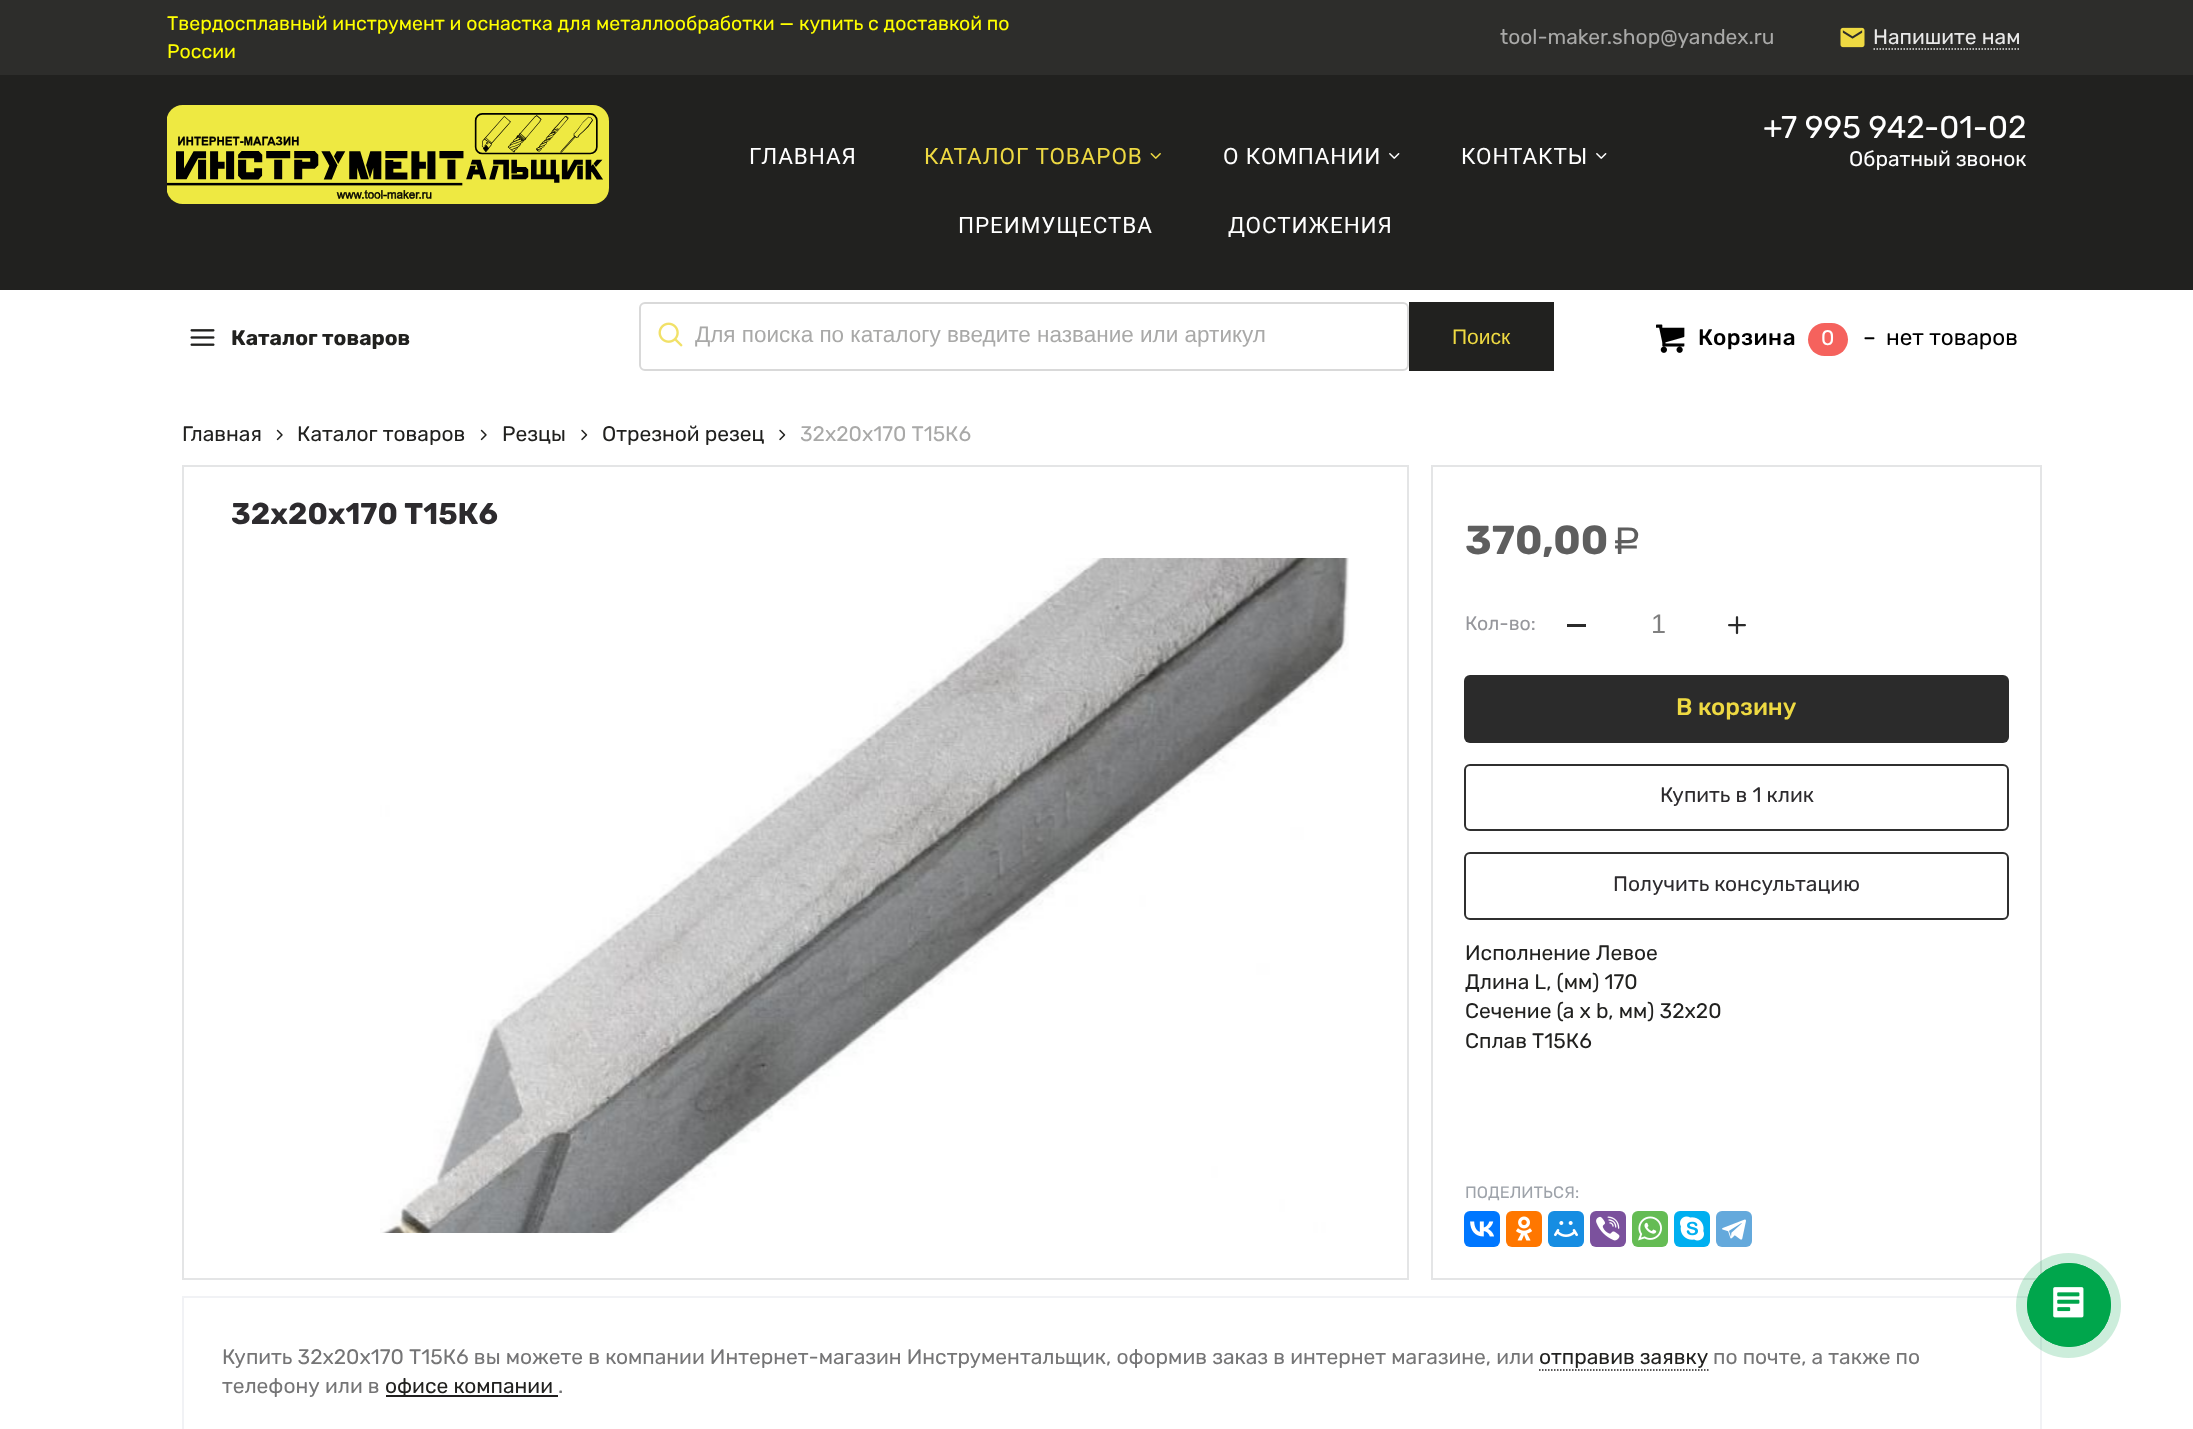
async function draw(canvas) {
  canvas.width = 2193
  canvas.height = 1429
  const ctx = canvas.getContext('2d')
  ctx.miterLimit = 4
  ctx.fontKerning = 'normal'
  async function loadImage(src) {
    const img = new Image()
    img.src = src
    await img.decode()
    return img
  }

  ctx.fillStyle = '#fff'
  ctx.fillRect(0, 0, 2193, 1429)
  ctx.fillStyle = '#2d2d2b'
  ctx.fillRect(0, 0, 2193, 75)
  ctx.font = '19.5px Rubik'
  ctx.fillStyle = '#ff0'
  ctx.fillText('Твердосплавный инструмент и оснастка для металлообработки — купить с доставкой по', 167, 30)
  ctx.fillText('России', 167, 58)
  ctx.font = '21px Rubik'
  ctx.fillStyle = '#a9a9a8'
  ctx.fillText('tool-maker.shop@yandex.ru', 1500, 44)
  ctx.drawImage(await loadImage('image0.png'), 1840, 27, 25, 21)
  ctx.beginPath()
  ctx.moveTo(1873.5, 49)
  ctx.lineTo(2020.5, 49)
  ctx.strokeStyle = '#e9e9e9'
  ctx.lineWidth = 1.5
  ctx.setLineDash([1.5, 1.5])
  ctx.stroke()
  ctx.fillStyle = '#e9e9e9'
  ctx.fillText('Напишите нам', 1873, 44)
  ctx.fillStyle = '#21211f'
  ctx.fillRect(0, 75, 2193, 215)
  ctx.drawImage(await loadImage('image1.png'), 167, 105, 442, 99)
  ctx.letterSpacing = '0.9px'
  ctx.font = '22.5px Roboto'
  ctx.fillStyle = '#fff'
  ctx.fillText('ГЛАВНАЯ', 749, 164)
  ctx.fillStyle = '#eed942'
  ctx.fillText('КАТАЛОГ ТОВАРОВ', 924, 164)
  ctx.drawImage(await loadImage('image2.png'), 1150, 153, 11, 6)
  ctx.fillStyle = '#fff'
  ctx.fillText('О КОМПАНИИ', 1223, 164)
  ctx.drawImage(await loadImage('image3.png'), 1389, 153, 11, 6)
  ctx.fillText('КОНТАКТЫ', 1461, 164)
  ctx.drawImage(await loadImage('image3.png'), 1596, 153, 11, 6)
  ctx.fillText('ПРЕИМУЩЕСТВА', 958, 233)
  ctx.fillText('ДОСТИЖЕНИЯ', 1228, 233)
  ctx.letterSpacing = '0px'
  ctx.font = '31.5px Rubik'
  ctx.fillText('+7 995 942-01-02', 1763, 138)
  ctx.font = '21px Rubik'
  ctx.fillText('Обратный звонок', 1849, 166)
  ctx.drawImage(await loadImage('image4.png'), 190, 329, 25, 17)
  ctx.font = 'bold 21px Rubik'
  ctx.fillStyle = '#21211f'
  ctx.fillText('Каталог товаров', 231, 345)
  ctx.beginPath()
  ctx.roundRect(640, 303, 768, 67, 5)
  ctx.strokeStyle = '#d9d9d9'
  ctx.lineWidth = 2
  ctx.setLineDash([])
  ctx.stroke()
  ctx.drawImage(await loadImage('image5.png'), 658, 322, 25, 25)
  ctx.save()
  ctx.beginPath()
  ctx.rect(695, 321, 705, 26)
  ctx.clip()
  ctx.font = '22.5px Liberation Sans'
  ctx.fillStyle = '#a9a9a8'
  ctx.fillText('Для поиска по каталогу введите название или артикул', 695, 342)
  ctx.restore()
  ctx.fillRect(1409, 302, 145, 69)
  ctx.font = '21px Liberation Sans'
  ctx.fillStyle = '#eed942'
  ctx.fillText('Поиск', 1452, 344)
  ctx.drawImage(await loadImage('image6.png'), 1656, 324, 29, 29)
  ctx.letterSpacing = '0.5px'
  ctx.font = '500 22.5px Rubik'
  ctx.fillStyle = '#000'
  ctx.fillText('Корзина', 1698, 345)
  ctx.fillStyle = '#f5625d'
  ctx.beginPath()
  ctx.roundRect(1808, 323, 40, 33, 16.5)
  ctx.fill()
  ctx.letterSpacing = '0px'
  ctx.font = '21px Rubik'
  ctx.fillStyle = '#fff'
  ctx.fillText('0', 1821, 345)
  ctx.font = '22.5px Rubik'
  ctx.fillStyle = '#000'
  ctx.fillText('–', 1863, 345)
  ctx.fillText('нет товаров', 1886, 345)
  ctx.font = '21px Rubik'
  ctx.fillStyle = '#21211f'
  ctx.fillText('Главная', 182, 441)
  ctx.drawImage(await loadImage('image7.png'), 276, 429, 7, 12)
  ctx.fillText('Каталог товаров', 297, 441)
  ctx.drawImage(await loadImage('image7.png'), 480, 429, 7, 12)
  ctx.fillText('Резцы', 502, 441)
  ctx.drawImage(await loadImage('image8.png'), 581, 429, 7, 12)
  ctx.fillText('Отрезной резец', 602, 441)
  ctx.drawImage(await loadImage('image8.png'), 779, 429, 7, 12)
  ctx.fillStyle = '#a9a9a8'
  ctx.fillText('32х20х170 Т15К6', 800, 441)
  ctx.strokeStyle = '#e4e5e6'
  ctx.strokeRect(183, 466, 1225, 813)
  ctx.font = 'bold 30px Rubik'
  ctx.fillStyle = '#2d2b2e'
  ctx.fillText('32х20х170 Т15К6', 231, 524)
  ctx.drawImage(await loadImage('image9.png'), 380, 558, 969, 675)
  ctx.strokeRect(1432, 466, 609, 813)
  ctx.font = 'bold 40.5px Rubik'
  ctx.fillStyle = '#5e5e5e'
  ctx.fillText('370,00', 1465, 554)
  ctx.font = '38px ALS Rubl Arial'
  ctx.fillText('Р', 1612, 554)
  ctx.font = '19.5px Rubik'
  ctx.fillStyle = '#96979c'
  ctx.fillText('Кол-во:', 1465, 630)
  ctx.fillStyle = '#2b2b2b'
  ctx.fillRect(1567, 624, 19, 3)
  ctx.font = '27px Liberation Sans'
  ctx.fillStyle = '#808080'
  ctx.fillText('1', 1651, 633)
  ctx.drawImage(await loadImage('image10.png'), 1728, 616, 18, 19)
  ctx.fillStyle = '#2b2b2b'
  ctx.beginPath()
  ctx.roundRect(1464, 675, 545, 68, 6)
  ctx.fill()
  ctx.font = '500 24px Rubik'
  ctx.fillStyle = '#eed942'
  ctx.fillText('В корзину', 1676, 715)
  ctx.beginPath()
  ctx.roundRect(1465, 765, 543, 65, 5)
  ctx.strokeStyle = '#2f2f2f'
  ctx.stroke()
  ctx.font = '21px Rubik'
  ctx.fillStyle = '#2d2b2e'
  ctx.fillText('Купить в 1 клик', 1660, 802)
  ctx.beginPath()
  ctx.roundRect(1465, 853, 543, 66, 5)
  ctx.stroke()
  ctx.fillText('Получить консультацию', 1613, 891)
  ctx.fillStyle = '#21211f'
  ctx.fillText('Исполнение Левое', 1465, 960)
  ctx.fillText('Длина L, (мм) 170', 1465, 989)
  ctx.fillText('Сечение (a x b, мм) 32х20', 1465, 1018)
  ctx.fillText('Сплав Т15К6', 1465, 1048)
  ctx.font = '16.5px Rubik'
  ctx.fillStyle = '#9ea3aa'
  ctx.fillText('ПОДЕЛИТЬСЯ:', 1465, 1198)
  ctx.fillStyle = '#07f'
  ctx.beginPath()
  ctx.roundRect(1464, 1211, 36, 36, 6)
  ctx.fill()
  ctx.drawImage(await loadImage('image11.png'), 1470, 1221, 24, 16)
  ctx.fillStyle = '#f70'
  ctx.beginPath()
  ctx.roundRect(1506, 1211, 36, 36, 6)
  ctx.fill()
  ctx.drawImage(await loadImage('image12.png'), 1516, 1216, 16, 25)
  ctx.fillStyle = '#168de2'
  ctx.beginPath()
  ctx.roundRect(1548, 1211, 36, 36, 6)
  ctx.fill()
  ctx.drawImage(await loadImage('image13.png'), 1554, 1221, 24, 16)
  ctx.fillStyle = '#7b519d'
  ctx.beginPath()
  ctx.roundRect(1590, 1211, 36, 36, 6)
  ctx.fill()
  ctx.drawImage(await loadImage('image14.png'), 1596, 1216, 24, 25)
  ctx.fillStyle = '#65bc54'
  ctx.beginPath()
  ctx.roundRect(1632, 1211, 36, 36, 6)
  ctx.fill()
  ctx.drawImage(await loadImage('image15.png'), 1638, 1216, 24, 25)
  ctx.fillStyle = '#00aff0'
  ctx.beginPath()
  ctx.roundRect(1674, 1211, 36, 36, 6)
  ctx.fill()
  ctx.drawImage(await loadImage('image16.png'), 1680, 1216, 24, 25)
  ctx.fillStyle = '#64a9dc'
  ctx.beginPath()
  ctx.roundRect(1716, 1211, 36, 36, 6)
  ctx.fill()
  ctx.drawImage(await loadImage('image17.png'), 1722, 1219, 24, 21)
  ctx.strokeStyle = '#f1f2f5'
  ctx.strokeRect(183, 1297, 1858, 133)
  ctx.font = '21px Rubik'
  ctx.fillStyle = '#757576'
  ctx.fillText('Купить 32х20х170 Т15К6 вы можете в компании Интернет-магазин Инструментальщик, оформив заказ в интернет магазине, или', 222, 1364)
  ctx.fillStyle = '#21211f'
  ctx.fillText('отправив заявку', 1539, 1364)
  ctx.beginPath()
  ctx.moveTo(1539, 1370)
  ctx.lineTo(1708.5, 1370)
  ctx.strokeStyle = '#201f1f'
  ctx.lineWidth = 1.5
  ctx.setLineDash([1.5, 1.5])
  ctx.stroke()
  ctx.fillStyle = '#757576'
  ctx.fillText('по почте, а также по', 1713, 1364)
  ctx.fillText('телефону или в', 222, 1393)
  ctx.fillStyle = '#201f1f'
  ctx.fillRect(386, 1395, 172, 2)
  ctx.fillStyle = '#21211f'
  ctx.fillText('офисе компании', 385, 1393)
  ctx.fillStyle = '#757576'
  ctx.fillText('.', 558, 1393)
  ctx.fillStyle = '#00a64c33'
  ctx.beginPath()
  ctx.arc(2068.5, 1305.5, 52.5, 0, 2 * Math.PI)
  ctx.fill()
  ctx.beginPath()
  ctx.arc(2069, 1305, 41.5, 0, 2 * Math.PI)
  ctx.strokeStyle = '#00a64c'
  ctx.lineWidth = 1
  ctx.setLineDash([])
  ctx.stroke()
  ctx.fillStyle = '#00a64c'
  ctx.beginPath()
  ctx.arc(2069, 1305, 42, 0, 2 * Math.PI)
  ctx.fill()
  ctx.drawImage(await loadImage('image18.png'), 2053, 1287, 31, 31)
}

draw(document.querySelector('canvas'))
